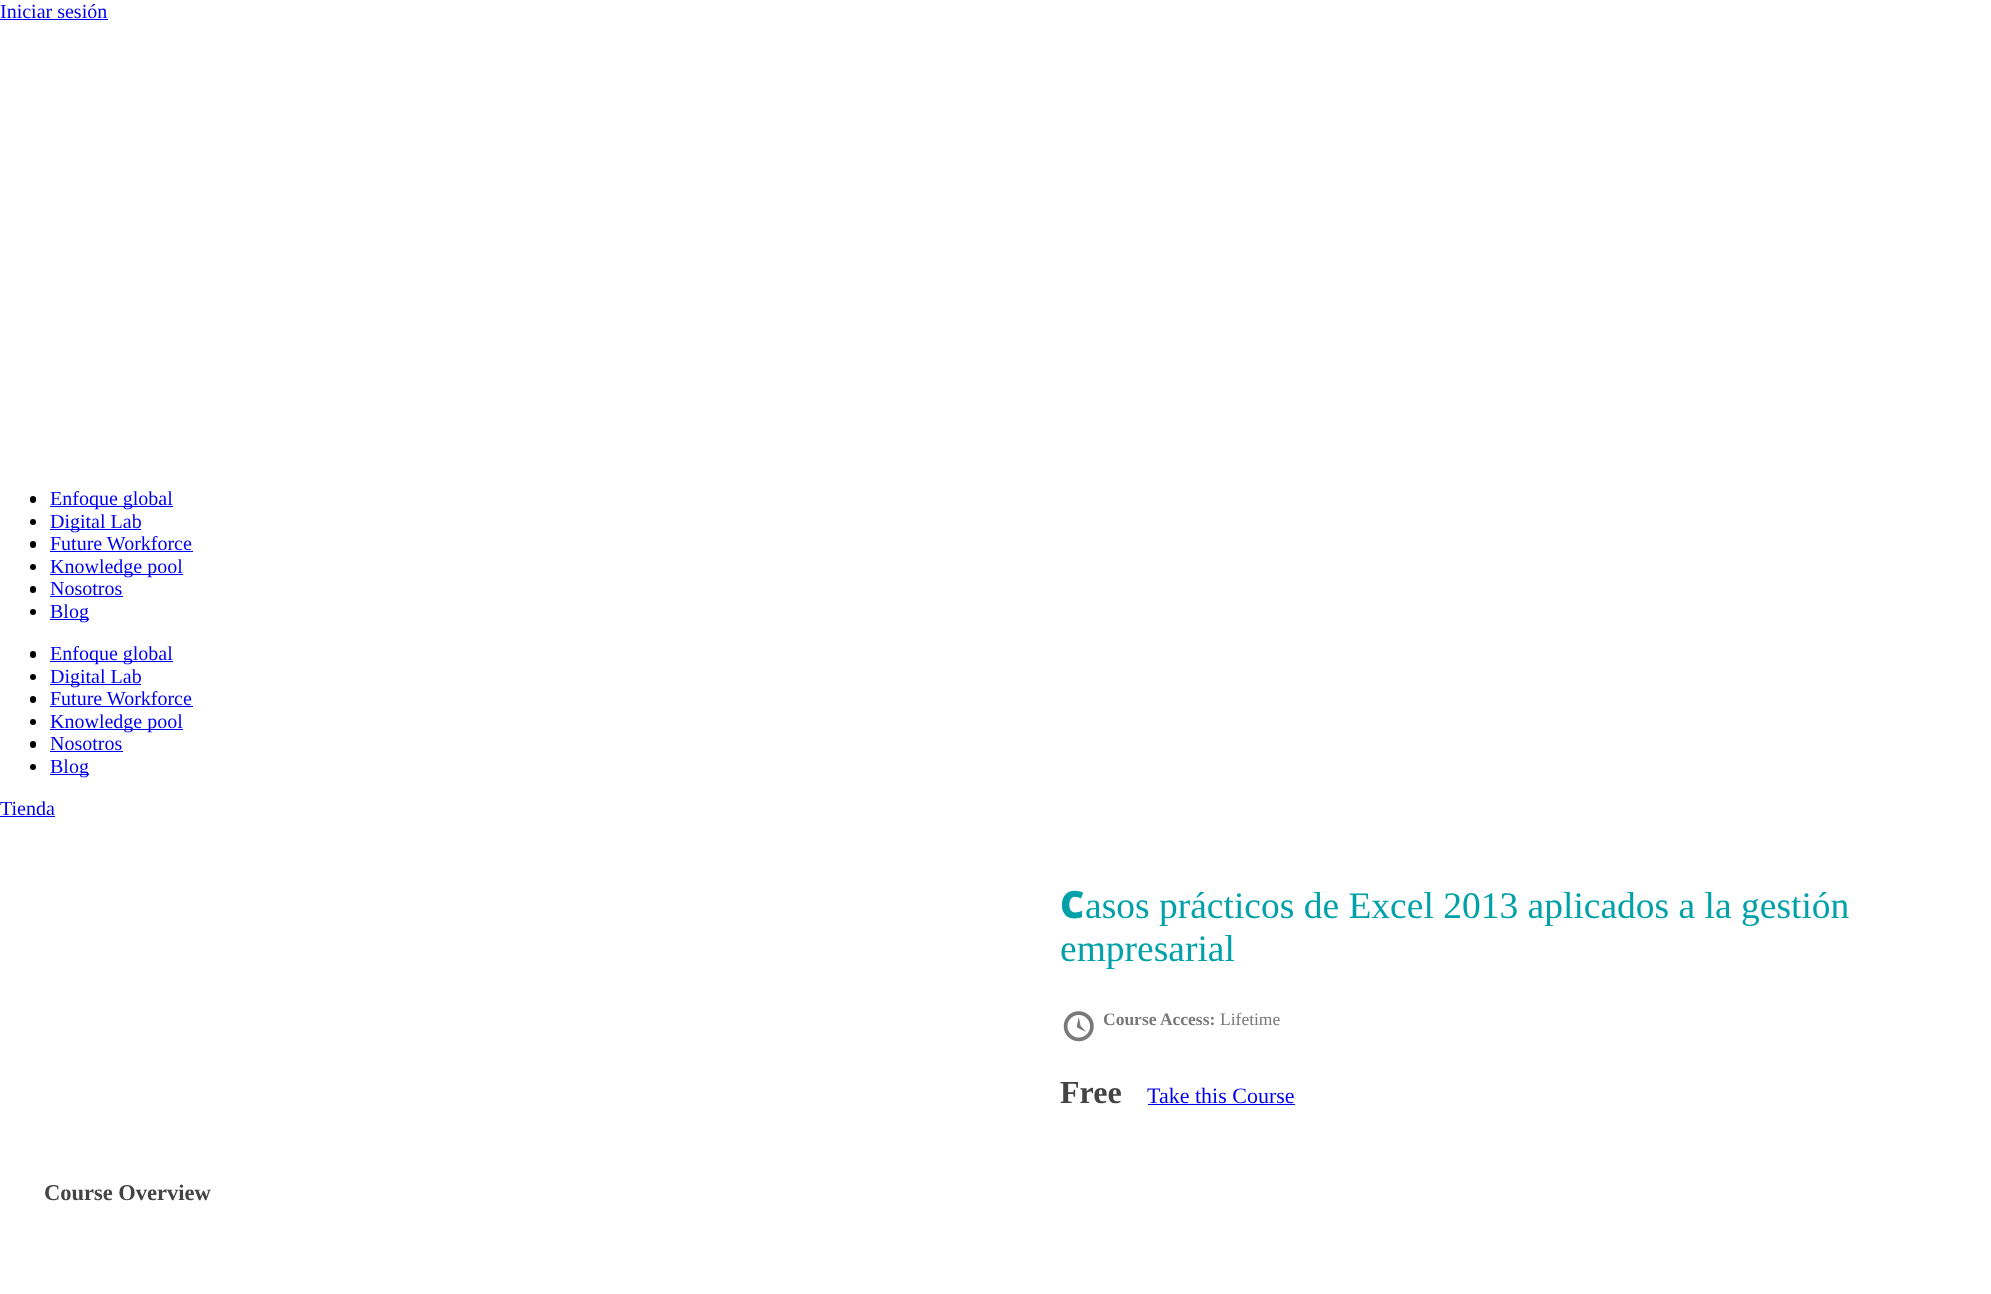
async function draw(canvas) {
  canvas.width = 1991
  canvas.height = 1294
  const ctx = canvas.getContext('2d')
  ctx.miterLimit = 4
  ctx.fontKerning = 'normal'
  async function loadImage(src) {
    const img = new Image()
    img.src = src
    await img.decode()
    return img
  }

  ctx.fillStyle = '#fff'
  ctx.fillRect(0, 0, 1991, 1294)
  ctx.font = '20px Liberation Serif'
  ctx.fillStyle = '#00e'
  ctx.fillText('Iniciar sesión', 0, 18)
  ctx.fillRect(0, 19, 108, 1)
  ctx.fillStyle = '#000'
  ctx.beginPath()
  ctx.roundRect(30, 496, 6, 7, 3)
  ctx.fill()
  ctx.fillStyle = '#00e'
  ctx.fillRect(50, 506, 123, 1)
  ctx.fillText('Enfoque global', 50, 505)
  ctx.fillStyle = '#000'
  ctx.beginPath()
  ctx.arc(33, 522, 3, 0, 2 * Math.PI)
  ctx.fill()
  ctx.fillStyle = '#00e'
  ctx.fillRect(50, 529, 91, 1)
  ctx.fillText('Digital Lab', 50, 528)
  ctx.fillStyle = '#000'
  ctx.beginPath()
  ctx.roundRect(30, 541, 6, 7, 3)
  ctx.fill()
  ctx.fillStyle = '#00e'
  ctx.fillText('Future Workforce', 50, 550)
  ctx.fillRect(50, 551, 143, 1)
  ctx.fillStyle = '#000'
  ctx.beginPath()
  ctx.arc(33, 567, 3, 0, 2 * Math.PI)
  ctx.fill()
  ctx.fillStyle = '#00e'
  ctx.fillRect(50, 574, 133, 1)
  ctx.fillText('Knowledge pool', 50, 573)
  ctx.fillStyle = '#000'
  ctx.beginPath()
  ctx.roundRect(30, 586, 6, 7, 3)
  ctx.fill()
  ctx.fillStyle = '#00e'
  ctx.fillText('Nosotros', 50, 595)
  ctx.fillRect(50, 596, 73, 1)
  ctx.fillStyle = '#000'
  ctx.beginPath()
  ctx.arc(33, 612, 3, 0, 2 * Math.PI)
  ctx.fill()
  ctx.fillStyle = '#00e'
  ctx.fillRect(50, 619, 39, 1)
  ctx.fillText('Blog', 50, 618)
  ctx.fillStyle = '#000'
  ctx.beginPath()
  ctx.roundRect(30, 651, 6, 7, 3)
  ctx.fill()
  ctx.fillStyle = '#00e'
  ctx.fillRect(50, 661, 123, 1)
  ctx.fillText('Enfoque global', 50, 660)
  ctx.fillStyle = '#000'
  ctx.beginPath()
  ctx.arc(33, 677, 3, 0, 2 * Math.PI)
  ctx.fill()
  ctx.fillStyle = '#00e'
  ctx.fillRect(50, 684, 91, 1)
  ctx.fillText('Digital Lab', 50, 683)
  ctx.fillStyle = '#000'
  ctx.beginPath()
  ctx.roundRect(30, 696, 6, 7, 3)
  ctx.fill()
  ctx.fillStyle = '#00e'
  ctx.fillText('Future Workforce', 50, 705)
  ctx.fillRect(50, 706, 143, 1)
  ctx.fillStyle = '#000'
  ctx.beginPath()
  ctx.arc(33, 722, 3, 0, 2 * Math.PI)
  ctx.fill()
  ctx.fillStyle = '#00e'
  ctx.fillRect(50, 729, 133, 1)
  ctx.fillText('Knowledge pool', 50, 728)
  ctx.fillStyle = '#000'
  ctx.beginPath()
  ctx.roundRect(30, 741, 6, 7, 3)
  ctx.fill()
  ctx.fillStyle = '#00e'
  ctx.fillText('Nosotros', 50, 750)
  ctx.fillRect(50, 751, 73, 1)
  ctx.fillStyle = '#000'
  ctx.beginPath()
  ctx.arc(33, 767, 3, 0, 2 * Math.PI)
  ctx.fill()
  ctx.fillStyle = '#00e'
  ctx.fillRect(50, 774, 39, 1)
  ctx.fillText('Blog', 50, 773)
  ctx.fillText('Tienda', 0, 815)
  ctx.fillRect(0, 816, 55, 1)
  ctx.font = '900 37.5px Noto Sans'
  ctx.fillStyle = '#00a1a8'
  ctx.fillText('C', 1060, 918)
  ctx.font = '37.5px Liberation Serif'
  ctx.fillText('asos prácticos de Excel 2013 aplicados a la gestión', 1085, 918)
  ctx.fillText('empresarial', 1060, 961)
  ctx.drawImage(await loadImage('image0.png'), 1063, 1011, 31, 31)
  ctx.font = 'bold 17.5px Liberation Serif'
  ctx.fillStyle = '#797979'
  ctx.fillText('Course Access:', 1103, 1025)
  ctx.font = '17.5px Liberation Serif'
  ctx.fillText('Lifetime', 1220, 1025)
  ctx.font = 'bold 32px Liberation Serif'
  ctx.fillStyle = '#444'
  ctx.fillText('Free', 1060, 1103)
  ctx.font = '22px Liberation Serif'
  ctx.fillStyle = '#00e'
  ctx.fillText('Take this Course', 1147, 1103)
  ctx.fillRect(1148, 1104, 147, 1)
  ctx.font = 'bold 22.5px Liberation Serif'
  ctx.fillStyle = '#444'
  ctx.fillText('Course Overview', 44, 1200)
}

draw(document.querySelector('canvas'))
